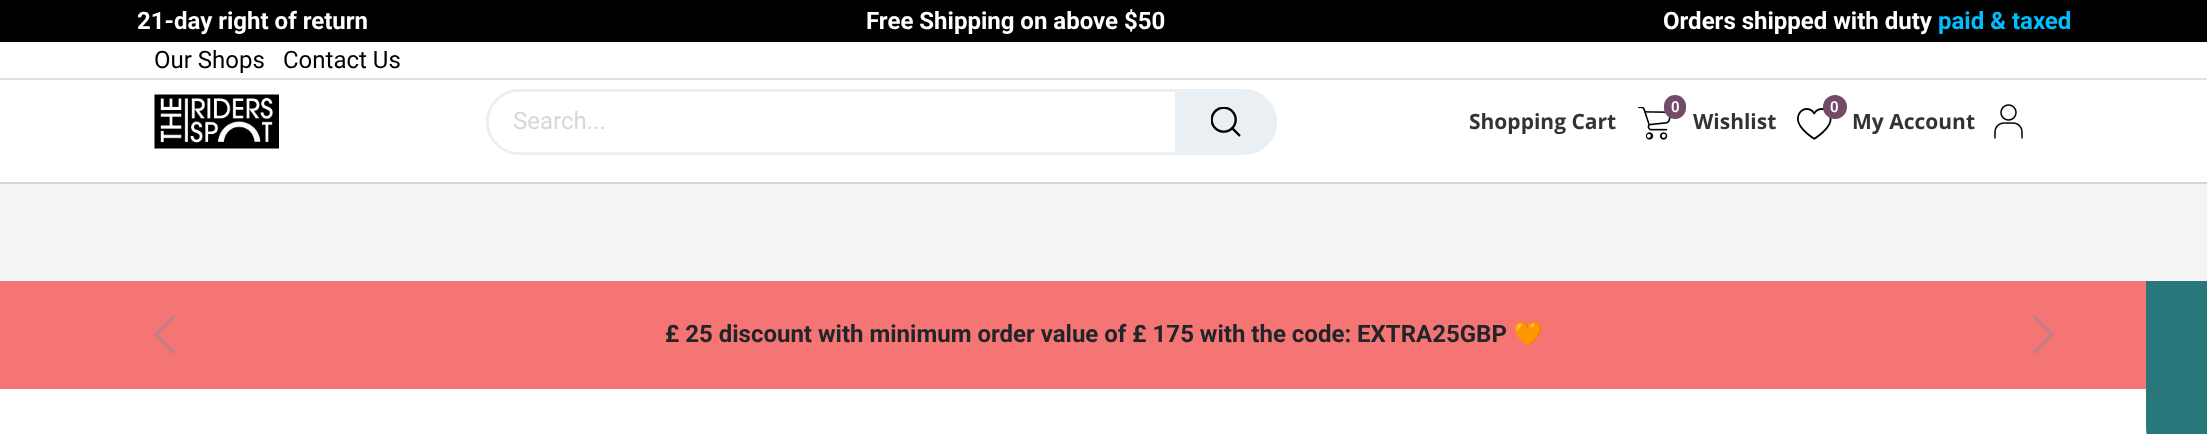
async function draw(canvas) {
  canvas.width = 2207
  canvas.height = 434
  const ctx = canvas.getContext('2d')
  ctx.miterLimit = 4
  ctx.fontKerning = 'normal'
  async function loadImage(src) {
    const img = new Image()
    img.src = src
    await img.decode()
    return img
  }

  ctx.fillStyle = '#fff'
  ctx.fillRect(0, 0, 2207, 434)
  ctx.fillStyle = '#000'
  ctx.fillRect(0, 0, 2207, 42)
  ctx.font = 'bold 24px Roboto'
  ctx.fillStyle = '#fff'
  ctx.fillText('21-day right of return', 137, 29)
  ctx.fillText('Free Shipping on above $50', 866, 29)
  ctx.fillText('Orders shipped with duty', 1663, 29)
  ctx.fillStyle = '#00bfff'
  ctx.fillText('paid & taxed', 1938, 29)
  ctx.fillStyle = '#dee2e6'
  ctx.fillRect(0, 78, 2207, 2)
  ctx.font = '24px Roboto'
  ctx.fillStyle = '#000'
  ctx.fillText('Our Shops', 154, 68)
  ctx.fillText('Contact Us', 283, 68)
  ctx.drawImage(await loadImage('image0.png'), 154, 94, 125, 55)
  ctx.beginPath()
  ctx.roundRect(487.5, 90.5, 788, 63, 31.5)
  ctx.strokeStyle = '#eaeff3'
  ctx.lineWidth = 3
  ctx.stroke()
  ctx.fillStyle = '#fff'
  ctx.beginPath()
  ctx.roundRect(489, 92, 785, 60, 30)
  ctx.fill()
  ctx.fillStyle = '#d8d8d8'
  ctx.fillText('Search...', 513, 129)
  ctx.fillStyle = '#eaeff3'
  ctx.beginPath()
  ctx.roundRect(1175, 92, 102, 60, [0, 30, 30, 0])
  ctx.fill()
  ctx.drawImage(await loadImage('image1.png'), 1211, 107, 30, 30)
  ctx.drawImage(await loadImage('image2.png'), 1638, 107, 33, 33)
  ctx.fillStyle = '#714b67'
  ctx.beginPath()
  ctx.roundRect(1664, 95, 22, 24, 11)
  ctx.fill()
  ctx.font = '600 15px Roboto'
  ctx.fillStyle = '#fff'
  ctx.fillText('0', 1671, 112)
  ctx.drawImage(await loadImage('image3.png'), 1797, 108, 35, 32)
  ctx.fillStyle = '#714b67'
  ctx.beginPath()
  ctx.arc(1835, 107, 12, 0, 2 * Math.PI)
  ctx.fill()
  ctx.fillStyle = '#fff'
  ctx.fillText('0', 1830, 112)
  ctx.font = 'bold 21px Open Sans'
  ctx.fillStyle = '#333'
  ctx.fillText('Shopping Cart', 1469, 129)
  ctx.fillText('Wishlist', 1693, 129)
  ctx.fillText('My Account', 1852, 129)
  ctx.drawImage(await loadImage('image4.png'), 1994, 104, 29, 35)
  ctx.fillStyle = '#28777b'
  ctx.beginPath()
  ctx.moveTo(2146, 426)
  ctx.lineTo(2146, 246)
  ctx.bezierCurveTo(2146, 213, 2173, 186, 2206, 186)
  ctx.lineTo(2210, 186)
  ctx.lineTo(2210, 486)
  ctx.lineTo(2206, 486)
  ctx.bezierCurveTo(2173, 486, 2146, 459, 2146, 426)
  ctx.closePath()
  ctx.fill()
  ctx.fillStyle = '#f4f4f4'
  ctx.fillRect(0, 184, 2207, 97)
  ctx.fillStyle = '#d4d5d6'
  ctx.fillRect(0, 182, 2207, 2)
  ctx.fillStyle = '#f57575'
  ctx.fillRect(0, 281, 2146, 108)
  ctx.drawImage(await loadImage('image5.png'), 154, 315, 22, 39)
  ctx.font = 'bold 24px Roboto'
  ctx.fillStyle = '#212529'
  ctx.fillText('£ 25 discount with minimum order value of £ 175 with the code: EXTRA25GBP', 665, 342)
  ctx.font = 'bold 24px Noto Color Emoji'
  ctx.fillText('🧡', 1513, 342)
  ctx.drawImage(await loadImage('image6.png'), 2032, 315, 22, 39)
}

draw(document.querySelector('canvas'))
